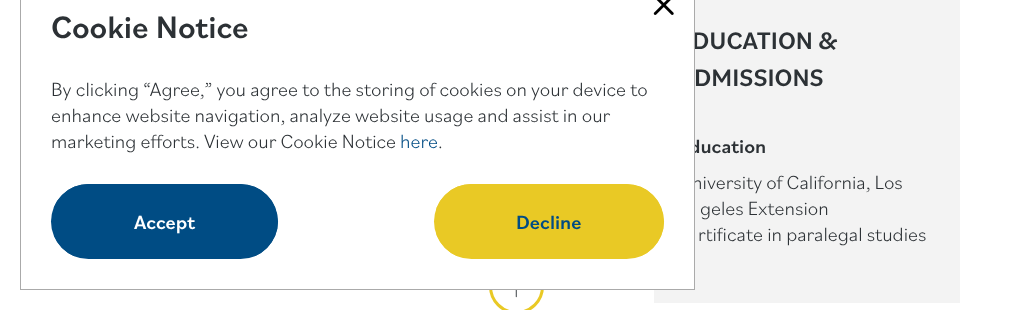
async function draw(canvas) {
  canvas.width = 1034
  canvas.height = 310
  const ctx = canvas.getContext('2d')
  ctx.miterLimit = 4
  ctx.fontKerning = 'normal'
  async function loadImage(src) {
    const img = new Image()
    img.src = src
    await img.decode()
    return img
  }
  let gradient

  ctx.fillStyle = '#fff'
  ctx.fillRect(0, 0, 1034, 310)
  ctx.fillStyle = '#f3f3f3'
  ctx.fillRect(654, 0, 306, 303)
  ctx.font = '500 20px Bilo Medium'
  ctx.fillStyle = '#2c3135'
  ctx.fillText('ducation', 689, 153)
  ctx.font = '300 20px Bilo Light'
  ctx.fillText('niversity of California, Los', 692, 189)
  ctx.beginPath()
  ctx.arc(516.5, 286.5, 26, 0, 2 * Math.PI)
  ctx.strokeStyle = '#e9c925'
  ctx.lineWidth = 3
  ctx.stroke()
  ctx.fillStyle = '#fff'
  ctx.fillRect(489, 0, 205, 289)
  ctx.font = '500 25px Bilo Medium'
  ctx.fillStyle = '#2c3135'
  ctx.fillText('DUCATION &', 692, 49)
  ctx.strokeStyle = '#aaa'
  ctx.lineWidth = 1
  ctx.strokeRect(20.5, -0.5, 674, 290)
  ctx.drawImage(await loadImage('image0.png'), 653, 0, 21, 15)
  ctx.font = '500 32.5px Bilo Medium'
  ctx.fillText('Cookie Notice', 51, 38)
  ctx.font = '300 20px Bilo Light'
  ctx.fillText('By clicking “Agree,” you agree to the storing of cookies on your device to', 51, 96)
  ctx.fillText('enhance website navigation, analyze website usage and assist in our', 51, 122)
  ctx.fillText('marketing efforts. View our Cookie Notice', 51, 148)
  ctx.fillStyle = '#004c84'
  ctx.fillText('here', 400, 148)
  ctx.fillStyle = '#2c3135'
  ctx.fillText('.', 438, 148)
  ctx.fillStyle = '#004c84'
  ctx.beginPath()
  ctx.roundRect(51, 184, 227, 75, 37.5)
  ctx.fill()
  ctx.save()
  ctx.beginPath()
  ctx.roundRect(51, 184, 227, 75, 37.5)
  ctx.clip()
  gradient = ctx.createLinearGradient(148, 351, 512, -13)
  gradient.addColorStop(0, '#004c84')
  gradient.addColorStop(0.5, '#004c84')
  gradient.addColorStop(0.5, '#002947')
  gradient.addColorStop(1, '#002947')
  ctx.fillStyle = gradient
  ctx.beginPath()
  ctx.roundRect(54, 184, 224, 72, [0, 37.5, 0, 0])
  ctx.fill()
  ctx.restore()
  ctx.font = '500 20px Bilo Medium'
  ctx.fillStyle = '#fff'
  ctx.fillText('Accept', 134, 229)
  ctx.fillStyle = '#e9c925'
  ctx.beginPath()
  ctx.roundRect(434, 184, 230, 75, 37.5)
  ctx.fill()
  ctx.save()
  ctx.beginPath()
  ctx.roundRect(434, 184, 230, 75, 37.5)
  ctx.clip()
  gradient = ctx.createLinearGradient(533, 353, 902, -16)
  gradient.addColorStop(0, '#e9c925')
  gradient.addColorStop(0.5, '#e9c925')
  gradient.addColorStop(0.5, '#bea213')
  gradient.addColorStop(1, '#bea213')
  ctx.fillStyle = gradient
  ctx.beginPath()
  ctx.roundRect(436, 184, 228, 72, [0, 37.5, 0, 0])
  ctx.fill()
  ctx.restore()
  ctx.fillStyle = '#004c84'
  ctx.fillText('Decline', 516, 229)
  ctx.font = '500 25px Bilo Medium'
  ctx.fillStyle = '#2c3135'
  ctx.fillText('DMISSIONS', 694, 86)
  ctx.font = '300 20px Bilo Light'
  ctx.fillText('geles Extension', 700, 215)
  ctx.fillText('rtificate in paralegal studies', 698, 241)
  ctx.drawImage(await loadImage('image1.png'), 515, 290, 2, 8)
}

draw(document.querySelector('canvas'))
